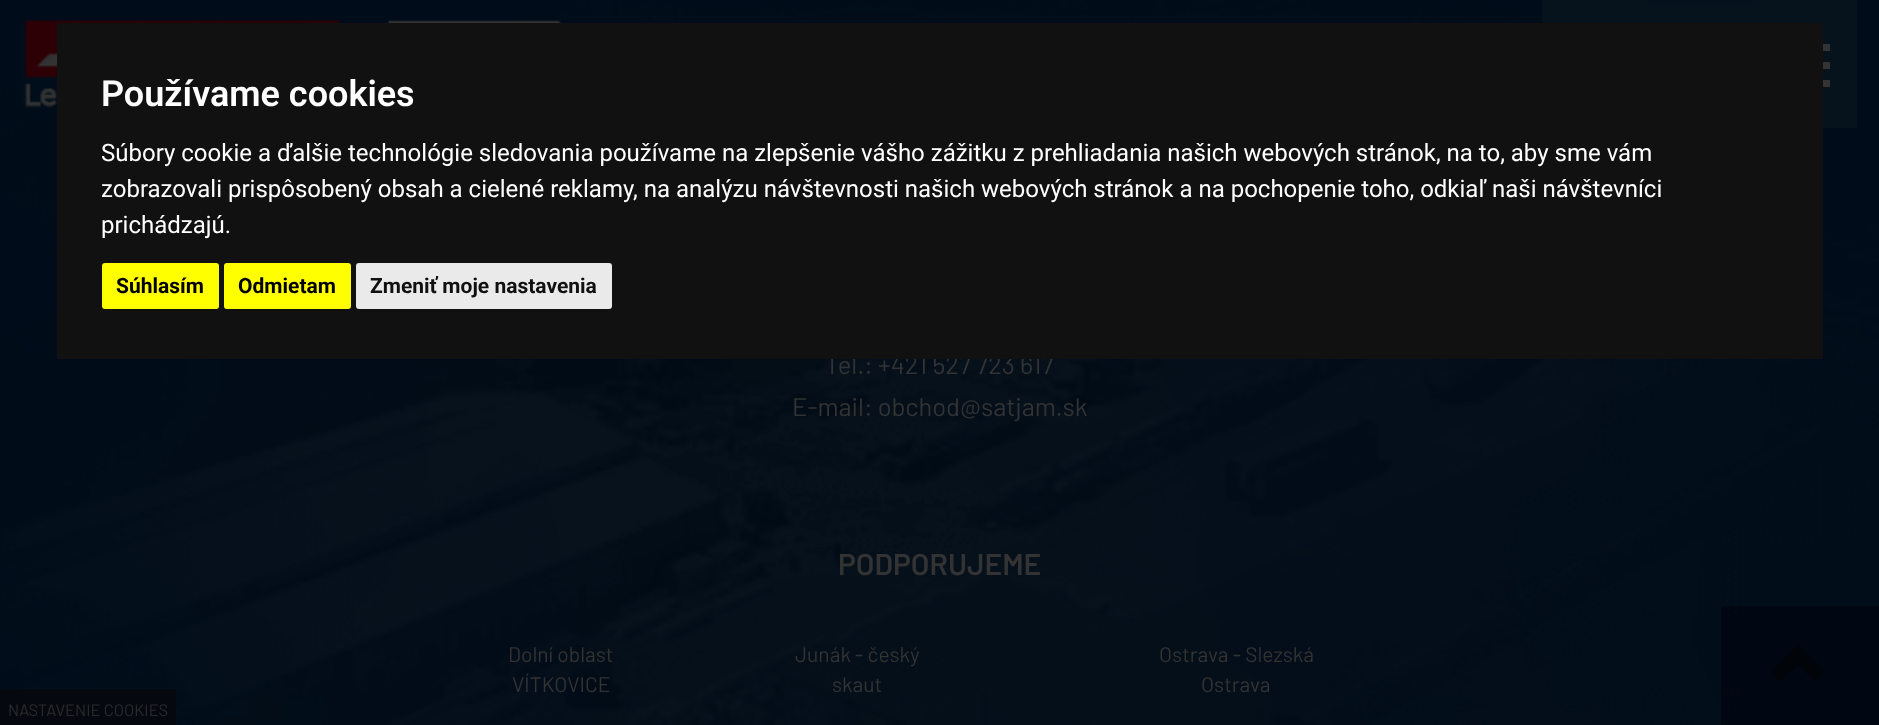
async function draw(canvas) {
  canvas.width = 1879
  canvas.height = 725
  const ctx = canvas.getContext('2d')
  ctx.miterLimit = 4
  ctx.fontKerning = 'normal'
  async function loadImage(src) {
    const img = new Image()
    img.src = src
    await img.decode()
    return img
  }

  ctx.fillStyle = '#000d1a'
  ctx.fillRect(0, 0, 1879, 725)
  ctx.drawImage(await loadImage('image3.png'), 0, 0, 1879, 725)
  ctx.fillStyle = '#000d1ae0'
  ctx.fillRect(400, 20, 1012, 108)
  ctx.drawImage(await loadImage('image0.png'), 22, 20, 319, 89)
  ctx.fillStyle = '#06121c'
  ctx.fillRect(1752, 0, 105, 128)
  ctx.font = '25.5px Barlow'
  ctx.fillStyle = '#333'
  ctx.fillText('Tel.: +421 527 723 617', 825, 374)
  ctx.fillStyle = '#111'
  ctx.fillRect(57, 23, 1766, 336)
  ctx.font = '600 36px Roboto'
  ctx.fillStyle = '#fff'
  ctx.fillText('Používame cookies', 101, 106)
  ctx.font = '24px Roboto'
  ctx.fillText('Súbory cookie a ďalšie technológie sledovania používame na zlepšenie vášho zážitku z prehliadania našich webových stránok, na to, aby sme vám', 101, 161)
  ctx.fillText('zobrazovali prispôsobený obsah a cielené reklamy, na analýzu návštevnosti našich webových stránok a na pochopenie toho, odkiaľ naši návštevníci', 101, 197)
  ctx.fillText('prichádzajú.', 101, 233)
  ctx.fillStyle = '#ff0'
  ctx.beginPath()
  ctx.roundRect(102, 263, 117, 46, 3)
  ctx.fill()
  ctx.font = 'bold 21px Roboto'
  ctx.fillStyle = '#000'
  ctx.fillText('Súhlasím', 116, 293)
  ctx.fillStyle = '#ff0'
  ctx.beginPath()
  ctx.roundRect(224, 263, 127, 46, 3)
  ctx.fill()
  ctx.fillStyle = '#000'
  ctx.fillText('Odmietam', 238, 293)
  ctx.fillStyle = '#eaeaea'
  ctx.beginPath()
  ctx.roundRect(356, 263, 256, 46, 3)
  ctx.fill()
  ctx.fillStyle = '#111'
  ctx.fillText('Zmeniť moje nastavenia', 370, 293)
  ctx.fillStyle = '#06090dcc'
  ctx.fillRect(0, 689, 176, 36)
  ctx.font = '16.5px Barlow'
  ctx.fillStyle = '#2a2b2c'
  ctx.fillText('NASTAVENIE COOKIES', 8, 716)
  ctx.drawImage(await loadImage('image1.png'), 388, 20, 174, 3)
  ctx.fillStyle = '#06121c'
  ctx.fillRect(1542, 0, 105, 23)
  ctx.drawImage(await loadImage('image2.png'), 1647, 0, 105, 23)
  ctx.fillStyle = '#333'
  ctx.fillRect(1823, 44, 7, 7)
  ctx.fillRect(1823, 62, 7, 7)
  ctx.fillRect(1823, 80, 7, 7)
  ctx.font = '25.5px Barlow'
  ctx.fillText('E-mail: obchod@satjam.sk', 792, 416)
  ctx.font = '600 30px Barlow'
  ctx.fillText('PODPORUJEME', 838, 575)
  ctx.font = '21px Barlow'
  ctx.fillText('Dolní oblast', 508, 662)
  ctx.fillText('VÍTKOVICE', 512, 692)
  ctx.fillText('Junák - český', 795, 662)
  ctx.fillText('skaut', 832, 692)
  ctx.fillText('Ostrava - Slezská', 1159, 662)
  ctx.fillText('Ostrava', 1201, 692)
  ctx.fillStyle = '#010610b3'
  ctx.fillRect(1721, 606, 158, 119)
  ctx.fillStyle = '#010409'
  ctx.beginPath()
  ctx.moveTo(1825, 672)
  ctx.lineTo(1815, 682)
  ctx.lineTo(1797, 665)
  ctx.lineTo(1780, 682)
  ctx.lineTo(1770, 672)
  ctx.lineTo(1798, 645)
  ctx.closePath()
  ctx.fill()
}

draw(document.querySelector('canvas'))
